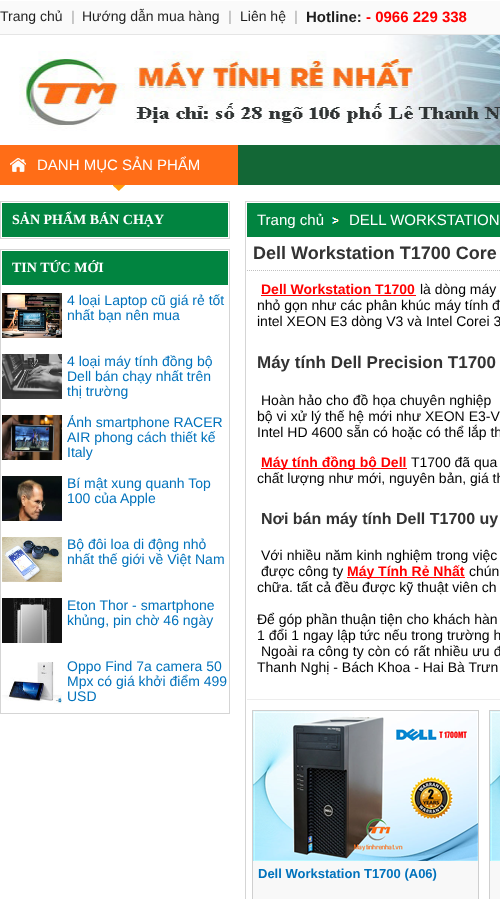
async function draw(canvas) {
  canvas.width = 500
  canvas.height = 899
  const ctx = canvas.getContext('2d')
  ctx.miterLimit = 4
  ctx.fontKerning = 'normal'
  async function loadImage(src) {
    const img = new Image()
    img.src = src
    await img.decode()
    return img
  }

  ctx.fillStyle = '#fff'
  ctx.fillRect(0, 0, 500, 899)
  ctx.fillStyle = '#fafafa'
  ctx.fillRect(0, 1, 500, 33)
  ctx.fillStyle = '#e5e5e5'
  ctx.fillRect(0, 34, 500, 1)
  ctx.font = '14px Liberation Sans'
  ctx.fillStyle = '#1e1e1e'
  ctx.fillText('Trang chủ', 0, 21)
  ctx.font = 'bold 14px Liberation Sans'
  ctx.fillStyle = '#c3c3c3'
  ctx.fillText('|', 71, 21)
  ctx.font = '14px Liberation Sans'
  ctx.fillStyle = '#1e1e1e'
  ctx.fillText('Hướng dẫn mua hàng', 82, 21)
  ctx.font = 'bold 14px Liberation Sans'
  ctx.fillStyle = '#c3c3c3'
  ctx.fillText('|', 228, 21)
  ctx.font = '14px Liberation Sans'
  ctx.fillStyle = '#1e1e1e'
  ctx.fillText('Liên hệ', 240, 21)
  ctx.font = 'bold 14px Liberation Sans'
  ctx.fillStyle = '#c3c3c3'
  ctx.fillText('|', 294, 21)
  ctx.font = 'bold 15px Liberation Sans'
  ctx.fillStyle = '#1e1e1e'
  ctx.fillText('Hotline:', 306, 22)
  ctx.fillStyle = '#f00'
  ctx.fillText('- 0966 229 338', 366, 22)
  ctx.drawImage(await loadImage('image0.png'), 19, 35, 481, 110)
  ctx.fillStyle = '#136736'
  ctx.fillRect(238, 145, 262, 40)
  ctx.fillStyle = '#ff6d17'
  ctx.fillRect(0, 145, 238, 40)
  ctx.drawImage(await loadImage('image1.png'), 10, 158, 16, 14)
  ctx.font = '15px Liberation Sans'
  ctx.fillStyle = '#fff'
  ctx.fillText('DANH MỤC SẢN PHẨM', 37, 170)
  ctx.drawImage(await loadImage('image2.png'), 113, 185, 12, 6)
  ctx.strokeStyle = '#d5d5d5'
  ctx.strokeRect(0.5, 201.5, 229, 37)
  ctx.fillStyle = '#018440'
  ctx.fillRect(2, 203, 226, 34)
  ctx.font = 'bold 14px Liberation Serif'
  ctx.fillStyle = '#fff'
  ctx.fillText('SẢN PHẨM BÁN CHẠY', 12, 224)
  ctx.strokeRect(0.5, 249.5, 229, 464)
  ctx.fillStyle = '#018440'
  ctx.fillRect(2, 251, 226, 34)
  ctx.fillStyle = '#fff'
  ctx.fillText('TIN TỨC MỚI', 12, 272)
  ctx.drawImage(await loadImage('image3.png'), 2, 293, 60, 45)
  ctx.font = '14px Liberation Sans'
  ctx.fillStyle = '#0072bc'
  ctx.fillText('4 loại Laptop cũ giá rẻ tốt', 67, 305)
  ctx.fillText('nhất bạn nên mua', 67, 320)
  ctx.drawImage(await loadImage('image4.png'), 2, 354, 60, 45)
  ctx.fillText('4 loại máy tính đồng bộ', 67, 366)
  ctx.fillText('Dell bán chạy nhất trên', 67, 381)
  ctx.fillText('thị trường', 67, 396)
  ctx.drawImage(await loadImage('image5.png'), 2, 415, 60, 45)
  ctx.save()
  ctx.beginPath()
  ctx.rect(67, 415, 161, 45)
  ctx.clip()
  ctx.fillText('Ảnh smartphone RACER', 67, 427)
  ctx.restore()
  ctx.fillText('AIR phong cách thiết kế', 67, 442)
  ctx.fillText('Italy', 67, 457)
  ctx.drawImage(await loadImage('image6.png'), 2, 476, 60, 45)
  ctx.fillText('Bí mật xung quanh Top', 67, 488)
  ctx.fillText('100 của Apple', 67, 503)
  ctx.drawImage(await loadImage('image7.png'), 2, 537, 60, 45)
  ctx.fillText('Bộ đôi loa di động nhỏ', 67, 549)
  ctx.fillText('nhất thế giới về Việt Nam', 67, 564)
  ctx.drawImage(await loadImage('image8.png'), 2, 598, 60, 45)
  ctx.fillText('Eton Thor - smartphone', 67, 610)
  ctx.fillText('khủng, pin chờ 46 ngày', 67, 625)
  ctx.drawImage(await loadImage('image9.png'), 2, 662, 60, 42)
  ctx.fillText('Oppo Find 7a camera 50', 67, 671)
  ctx.fillText('Mpx có giá khởi điểm 499', 67, 686)
  ctx.fillText('USD', 67, 701)
  ctx.strokeRect(245.5, 201.5, 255, 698)
  ctx.fillStyle = '#018440'
  ctx.fillRect(247, 203, 253, 34)
  ctx.drawImage(await loadImage('image10.png'), 332, 217, 7, 7)
  ctx.font = '15px Liberation Sans'
  ctx.fillStyle = '#fff'
  ctx.fillText('Trang chủ', 257, 225)
  ctx.fillText('DELL WORKSTATION', 349, 225)
  ctx.beginPath()
  ctx.moveTo(247, 270.5)
  ctx.lineTo(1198, 270.5)
  ctx.strokeStyle = '#c0c0c0'
  ctx.setLineDash([1, 1])
  ctx.stroke()
  ctx.font = 'bold 18px Liberation Sans'
  ctx.fillStyle = '#333'
  ctx.fillText('Dell Workstation T1700 Core', 253, 259)
  ctx.fillStyle = '#ededed'
  ctx.fillRect(247, 699, 253, 1)
  ctx.font = 'bold 14px Liberation Sans'
  ctx.fillStyle = '#f00'
  ctx.fillText('Dell Workstation T1700', 261, 294)
  ctx.fillRect(261, 295, 155, 1)
  ctx.font = '14px Liberation Sans'
  ctx.fillStyle = '#000'
  ctx.fillText('là dòng máy', 420, 294)
  ctx.fillText('nhỏ gọn như các phân khúc máy tính đ', 257, 310)
  ctx.fillText('intel XEON E3 dòng V3 và Intel Corei 3', 257, 326)
  ctx.font = 'bold 17px Liberation Sans'
  ctx.fillStyle = '#333'
  ctx.fillText('Máy tính Dell Precision T1700', 257, 368)
  ctx.wordSpacing = '0.25px'
  ctx.font = '14px Liberation Sans'
  ctx.fillStyle = '#000'
  ctx.fillText('Hoàn hảo cho đồ họa chuyên nghiệp', 261, 405)
  ctx.wordSpacing = '0.1px'
  ctx.fillText('bộ vi xử lý thế hệ mới như XEON E3-V', 257, 421)
  ctx.wordSpacing = '0px'
  ctx.fillText('Intel HD 4600 sẵn có hoặc có thể lắp th', 257, 437)
  ctx.fillStyle = '#f00'
  ctx.fillRect(261, 468, 146, 1)
  ctx.font = 'bold 14px Liberation Sans'
  ctx.fillText('Máy tính đồng bộ Dell', 261, 467)
  ctx.font = '14px Liberation Sans'
  ctx.fillStyle = '#000'
  ctx.fillText('T1700 đã qua', 411, 467)
  ctx.fillText('chất lượng như mới, nguyên bản, giá th', 257, 483)
  ctx.font = 'bold 16px Liberation Sans'
  ctx.fillStyle = '#333'
  ctx.fillText('Nơi bán máy tính Dell T1700 uy', 261, 524)
  ctx.wordSpacing = '0.25px'
  ctx.font = '14px Liberation Sans'
  ctx.fillStyle = '#000'
  ctx.fillText('Với nhiều năm kinh nghiệm trong việc', 261, 560)
  ctx.wordSpacing = '0px'
  ctx.fillText('được công ty', 261, 576)
  ctx.fillStyle = '#f00'
  ctx.fillRect(347, 577, 118, 1)
  ctx.font = 'bold 14px Liberation Sans'
  ctx.fillText('Máy Tính Rẻ Nhất', 347, 576)
  ctx.font = '14px Liberation Sans'
  ctx.fillStyle = '#000'
  ctx.fillText('chún', 469, 576)
  ctx.fillText('chữa. tất cả đều được kỹ thuật viên ch', 257, 592)
  ctx.fillText('Để góp phần thuận tiện cho khách hàn', 257, 624)
  ctx.fillText('1 đổi 1 ngay lập tức nếu trong trường h', 257, 640)
  ctx.wordSpacing = '0.25px'
  ctx.fillText('Ngoài ra công ty còn có rất nhiều ưu đ', 261, 656)
  ctx.wordSpacing = '0px'
  ctx.fillText('Thanh Nghị - Bách Khoa - Hai Bà Trưn', 257, 672)
  ctx.fillStyle = '#f8f8f8'
  ctx.fillRect(253, 861, 225, 38)
  ctx.strokeStyle = '#cfcfcf'
  ctx.setLineDash([])
  ctx.strokeRect(252.5, 710.5, 226, 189)
  ctx.drawImage(await loadImage('image11.png'), 253, 711, 225, 150)
  ctx.font = 'bold 13px Liberation Sans'
  ctx.fillStyle = '#0072bc'
  ctx.fillText('Dell Workstation T1700 (A06)', 258, 878)
  ctx.fillStyle = '#f8f8f8'
  ctx.fillRect(490, 861, 10, 38)
  ctx.strokeRect(489.5, 710.5, 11, 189)
  ctx.drawImage(await loadImage('image12.png'), 490, 711, 10, 150)
}

draw(document.querySelector('canvas'))
